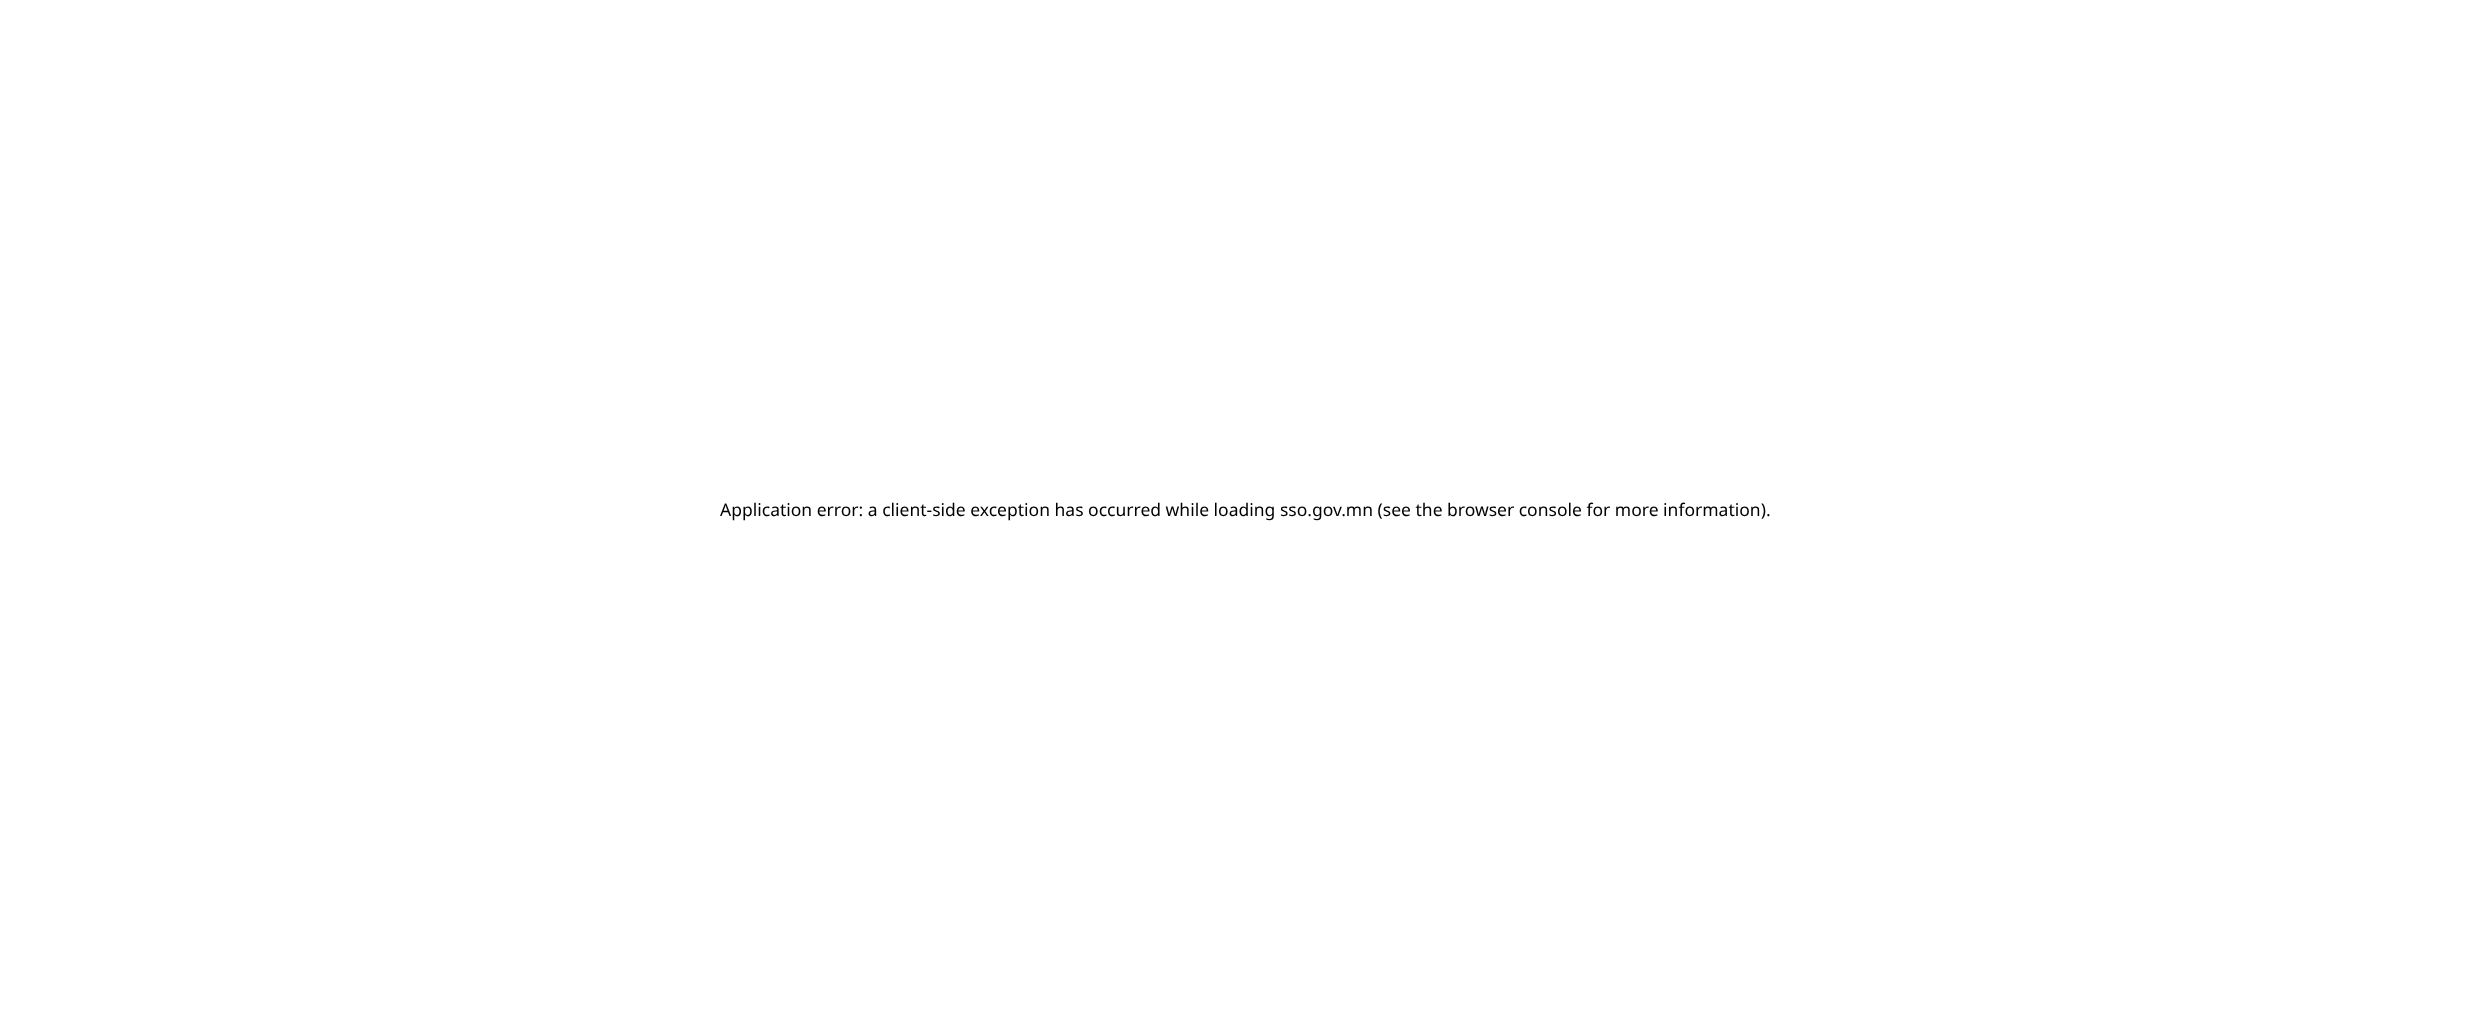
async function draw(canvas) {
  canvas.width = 2489
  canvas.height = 1020
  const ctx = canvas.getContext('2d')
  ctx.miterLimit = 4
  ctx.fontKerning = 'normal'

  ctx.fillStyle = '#fff'
  ctx.fillRect(0, 0, 2489, 1020)
  ctx.font = '17.5px Noto Sans'
  ctx.fillStyle = '#000'
  ctx.fillText('Application error: a client-side exception has occurred while loading sso.gov.mn (see the browser console for more information).', 720, 516)
}

draw(document.querySelector('canvas'))
